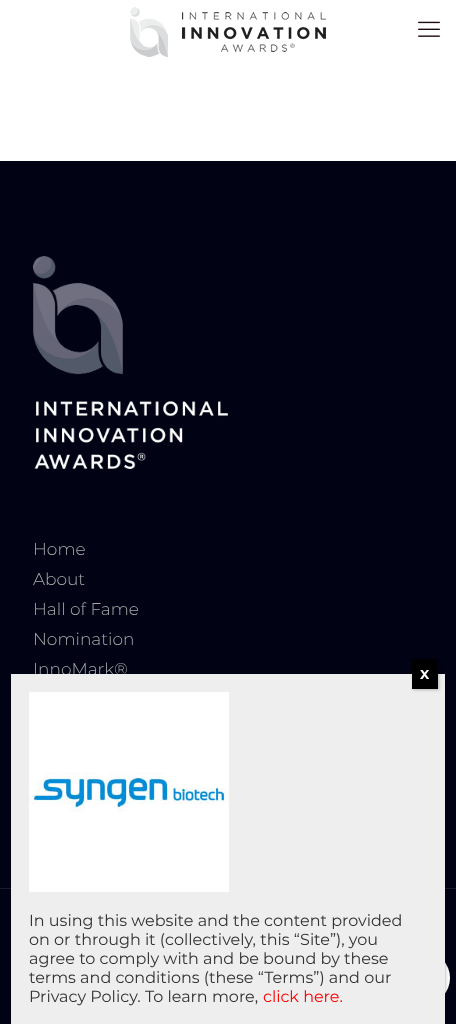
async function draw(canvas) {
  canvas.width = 456
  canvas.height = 1024
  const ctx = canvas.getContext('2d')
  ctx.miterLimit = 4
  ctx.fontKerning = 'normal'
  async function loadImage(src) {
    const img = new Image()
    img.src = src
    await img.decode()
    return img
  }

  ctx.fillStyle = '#fff'
  ctx.fillRect(0, 0, 456, 1024)
  ctx.drawImage(await loadImage('image0.png'), 130, 7, 196, 50)
  ctx.drawImage(await loadImage('image1.png'), 418, 21, 22, 16)
  ctx.fillStyle = '#010214'
  ctx.fillRect(0, 161, 456, 863)
  ctx.drawImage(await loadImage('image2.png'), 33, 256, 195, 213)
  ctx.font = '300 17px Montserrat'
  ctx.fillStyle = '#a8a8a8'
  ctx.fillText('Home', 33, 555)
  ctx.fillText('About', 33, 585)
  ctx.fillText('Hall of Fame', 33, 615)
  ctx.fillText('Nomination', 33, 645)
  ctx.fillText('InnoMark®', 33, 675)
  ctx.fillStyle = '#1a1b2c'
  ctx.fillRect(0, 888, 456, 1)
  ctx.fillStyle = '#fff'
  ctx.beginPath()
  ctx.ellipse(425, 978, 25, 26, 0, 0, 2 * Math.PI)
  ctx.fill()
  ctx.fillStyle = '#0202023b'
  ctx.filter = 'blur(1.5px)'
  ctx.beginPath()
  ctx.rect(12, 675, 434, 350)
  ctx.fill()
  ctx.filter = 'none'
  ctx.fillStyle = '#eee'
  ctx.fillRect(11, 674, 434, 350)
  ctx.fillStyle = '#0202023b'
  ctx.filter = 'blur(1.5px)'
  ctx.beginPath()
  ctx.rect(413, 660, 26, 30)
  ctx.fill()
  ctx.filter = 'none'
  ctx.fillStyle = '#000'
  ctx.fillRect(412, 659, 26, 30)
  ctx.font = 'bold 13px Montserrat'
  ctx.fillStyle = '#fff'
  ctx.fillText('X', 420, 679)
  ctx.drawImage(await loadImage('image3.png'), 29, 692, 200, 200)
  ctx.font = '16px Montserrat'
  ctx.fillStyle = '#333'
  ctx.fillText('In using this website and the content provided', 29, 926)
  ctx.fillText('on or through it (collectively, this “Site”), you', 29, 945)
  ctx.fillText('agree to comply with and be bound by these', 29, 964)
  ctx.fillText('terms and conditions (these “Terms”) and our', 29, 983)
  ctx.fillText('Privacy Policy. To learn more,', 29, 1002)
  ctx.fillStyle = '#f00'
  ctx.fillText('click here.', 263, 1002)
}

draw(document.querySelector('canvas'))
